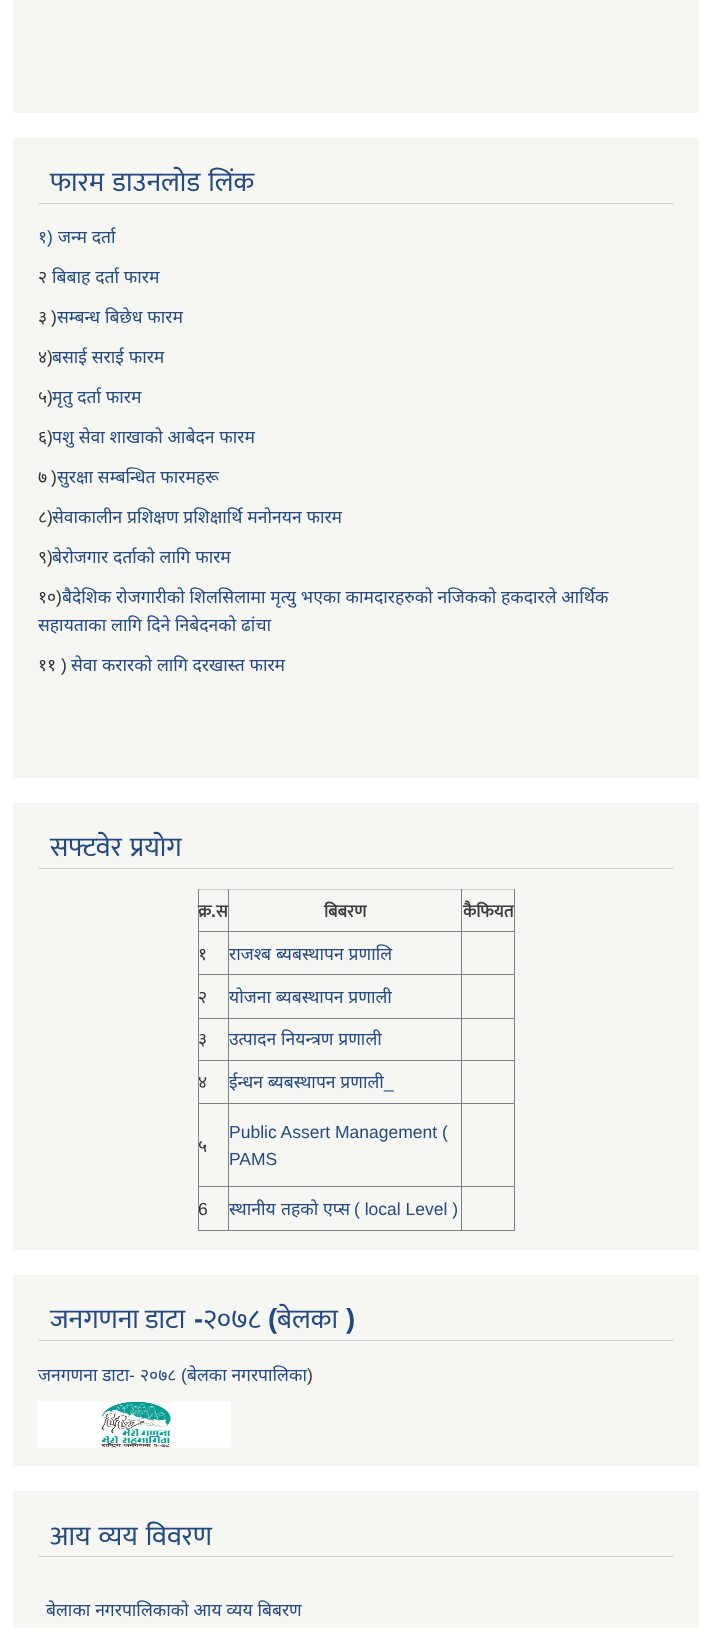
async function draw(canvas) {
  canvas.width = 711
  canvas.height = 1628
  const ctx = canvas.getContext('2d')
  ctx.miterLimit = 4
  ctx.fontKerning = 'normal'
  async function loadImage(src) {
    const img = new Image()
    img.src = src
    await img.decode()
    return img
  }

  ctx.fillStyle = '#fff'
  ctx.fillRect(0, 0, 711, 1628)
  ctx.fillStyle = '#f6f6f2'
  ctx.fillRect(13, 0, 686, 113)
  ctx.fillRect(13, 138, 686, 640)
  ctx.fillStyle = '#d6d6d6'
  ctx.fillRect(38, 203, 636, 1)
  ctx.wordSpacing = '2px'
  ctx.font = '27.5px Mukta'
  ctx.fillStyle = '#234a83'
  ctx.fillText('फारम डाउनलोड लिंक', 50, 191)
  ctx.wordSpacing = '0px'
  ctx.font = '17.5px Noto Sans'
  ctx.fillText('१', 38, 243)
  ctx.font = '17.5px Liberation Sans'
  ctx.fillText(')', 47, 243)
  ctx.wordSpacing = '0.25px'
  ctx.font = '17.5px Noto Sans'
  ctx.fillText('जन्म दर्ता', 58, 243)
  ctx.wordSpacing = '0px'
  ctx.fillStyle = '#333'
  ctx.fillText('२', 38, 283)
  ctx.wordSpacing = '0.25px'
  ctx.fillStyle = '#234a83'
  ctx.fillText('बिबाह दर्ता फारम', 52, 283)
  ctx.wordSpacing = '0px'
  ctx.fillStyle = '#333'
  ctx.fillText('३', 38, 323)
  ctx.font = '17.5px Liberation Sans'
  ctx.fillText(')', 51, 323)
  ctx.wordSpacing = '0.25px'
  ctx.font = '17.5px Noto Sans'
  ctx.fillStyle = '#234a83'
  ctx.fillText('सम्बन्ध बिछेध फारम', 57, 323)
  ctx.wordSpacing = '0px'
  ctx.fillStyle = '#333'
  ctx.fillText('४', 38, 363)
  ctx.font = '17.5px Liberation Sans'
  ctx.fillText(')', 47, 363)
  ctx.wordSpacing = '0.25px'
  ctx.font = '17.5px Noto Sans'
  ctx.fillStyle = '#234a83'
  ctx.fillText('बसाई सराई फारम', 52, 363)
  ctx.wordSpacing = '0px'
  ctx.font = '17.5px Liberation Sans'
  ctx.fillStyle = '#333'
  ctx.fillText(')', 47, 403)
  ctx.wordSpacing = '0.25px'
  ctx.font = '17.5px Noto Sans'
  ctx.fillStyle = '#234a83'
  ctx.fillText('मृतु दर्ता फारम', 52, 403)
  ctx.wordSpacing = '0px'
  ctx.fillStyle = '#333'
  ctx.fillText('५', 38, 403)
  ctx.fillText('६', 38, 443)
  ctx.font = '17.5px Liberation Sans'
  ctx.fillText(')', 47, 443)
  ctx.wordSpacing = '0.25px'
  ctx.font = '17.5px Noto Sans'
  ctx.fillStyle = '#234a83'
  ctx.fillText('पशु सेवा शाखाको आबेदन फारम', 52, 443)
  ctx.wordSpacing = '0px'
  ctx.font = '17.5px Liberation Sans'
  ctx.fillStyle = '#333'
  ctx.fillText(')', 51, 483)
  ctx.wordSpacing = '0.25px'
  ctx.font = '17.5px Noto Sans'
  ctx.fillStyle = '#234a83'
  ctx.fillText('सुरक्षा सम्बन्धित फारमहरू', 57, 483)
  ctx.wordSpacing = '0px'
  ctx.fillStyle = '#333'
  ctx.fillText('७', 38, 483)
  ctx.fillText('८', 38, 523)
  ctx.font = '17.5px Liberation Sans'
  ctx.fillText(')', 47, 523)
  ctx.wordSpacing = '0.25px'
  ctx.font = '17.5px Noto Sans'
  ctx.fillStyle = '#234a83'
  ctx.fillText('सेवाकालीन प्रशिक्षण प्रशिक्षार्थि मनोनयन फारम', 52, 523)
  ctx.wordSpacing = '0px'
  ctx.fillStyle = '#333'
  ctx.fillText('९', 38, 563)
  ctx.font = '17.5px Liberation Sans'
  ctx.fillText(')', 47, 563)
  ctx.wordSpacing = '0.25px'
  ctx.font = '17.5px Noto Sans'
  ctx.fillStyle = '#234a83'
  ctx.fillText('बेरोजगार दर्ताको लागि फारम', 52, 563)
  ctx.wordSpacing = '0px'
  ctx.fillStyle = '#333'
  ctx.fillText('१०', 38, 603)
  ctx.font = '17.5px Liberation Sans'
  ctx.fillText(')', 56, 603)
  ctx.wordSpacing = '0.25px'
  ctx.font = '17.5px Noto Sans'
  ctx.fillStyle = '#234a83'
  ctx.fillText('बैदेशिक रोजगारीको शिलसिलामा मृत्यु भएका कामदारहरुको नजिकको हकदारले आर्थिक', 62, 603)
  ctx.fillText('सहायताका लागि दिने निबेदनको ढांचा', 38, 631)
  ctx.wordSpacing = '0px'
  ctx.fillStyle = '#333'
  ctx.fillText('११', 38, 671)
  ctx.font = '17.5px Liberation Sans'
  ctx.fillText(')', 61, 671)
  ctx.wordSpacing = '0.25px'
  ctx.font = '17.5px Noto Sans'
  ctx.fillStyle = '#234a83'
  ctx.fillText('सेवा करारको लागि दरखास्त फारम', 71, 671)
  ctx.fillStyle = '#f6f6f2'
  ctx.fillRect(13, 803, 686, 447)
  ctx.fillStyle = '#d6d6d6'
  ctx.fillRect(38, 868, 636, 1)
  ctx.wordSpacing = '2px'
  ctx.font = '27.5px Mukta'
  ctx.fillStyle = '#234a83'
  ctx.fillText('सफ्टवेर प्रयोग', 50, 856)
  ctx.fillStyle = '#808080'
  ctx.fillRect(198, 1230, 317, 1)
  ctx.fillStyle = '#ccc'
  ctx.fillRect(198, 889, 317, 1)
  ctx.fillStyle = '#808080'
  ctx.fillRect(461, 1186, 1, 45)
  ctx.fillRect(514, 889, 1, 342)
  ctx.fillRect(461, 1186, 54, 1)
  ctx.fillRect(461, 1103, 1, 85)
  ctx.fillRect(461, 1103, 54, 1)
  ctx.fillRect(461, 1060, 1, 44)
  ctx.fillRect(461, 1060, 54, 1)
  ctx.fillRect(461, 1018, 1, 43)
  ctx.fillRect(461, 1018, 54, 1)
  ctx.fillRect(461, 974, 1, 45)
  ctx.fillRect(461, 974, 54, 1)
  ctx.fillRect(461, 931, 1, 44)
  ctx.fillRect(461, 931, 54, 1)
  ctx.fillRect(461, 889, 1, 44)
  ctx.fillRect(228, 1186, 1, 45)
  ctx.fillRect(228, 1186, 235, 1)
  ctx.fillRect(228, 1103, 1, 85)
  ctx.fillRect(228, 1103, 235, 1)
  ctx.fillRect(228, 1060, 1, 44)
  ctx.fillRect(228, 1060, 235, 1)
  ctx.fillRect(228, 1018, 1, 43)
  ctx.fillRect(228, 1018, 235, 1)
  ctx.fillRect(228, 974, 1, 45)
  ctx.fillRect(228, 974, 235, 1)
  ctx.fillRect(228, 931, 1, 44)
  ctx.fillRect(228, 931, 235, 1)
  ctx.fillRect(228, 889, 1, 44)
  ctx.fillRect(198, 1186, 1, 45)
  ctx.fillRect(198, 1186, 31, 1)
  ctx.fillRect(198, 1103, 1, 85)
  ctx.fillRect(198, 1103, 31, 1)
  ctx.fillRect(198, 1060, 1, 44)
  ctx.fillRect(198, 1060, 31, 1)
  ctx.fillRect(198, 1018, 1, 43)
  ctx.fillRect(198, 1018, 31, 1)
  ctx.fillRect(198, 974, 1, 45)
  ctx.fillRect(198, 974, 31, 1)
  ctx.fillRect(198, 931, 1, 44)
  ctx.fillRect(198, 931, 31, 1)
  ctx.fillRect(198, 889, 1, 44)
  ctx.wordSpacing = '0px'
  ctx.font = 'bold 17.5px Mukta'
  ctx.fillStyle = '#3d3d3d'
  ctx.fillText('क्र', 198, 917)
  ctx.font = 'bold 17.5px Liberation Sans'
  ctx.fillText('.', 211, 917)
  ctx.font = 'bold 17.5px Mukta'
  ctx.fillText('स', 216, 917)
  ctx.fillText('बिबरण', 324, 917)
  ctx.fillText('कैफियत', 463, 917)
  ctx.font = '17.5px Noto Sans'
  ctx.fillStyle = '#333'
  ctx.fillText('१', 198, 960)
  ctx.wordSpacing = '0.25px'
  ctx.fillStyle = '#234a83'
  ctx.fillText('राजश्ब ब्यबस्थापन प्रणालि', 229, 960)
  ctx.wordSpacing = '0px'
  ctx.fillStyle = '#333'
  ctx.fillText('२', 198, 1003)
  ctx.wordSpacing = '0.25px'
  ctx.fillStyle = '#234a83'
  ctx.fillText('योजना ब्यबस्थापन प्रणाली', 229, 1003)
  ctx.wordSpacing = '0px'
  ctx.fillStyle = '#333'
  ctx.fillText('३', 198, 1045)
  ctx.wordSpacing = '0.25px'
  ctx.fillStyle = '#234a83'
  ctx.fillText('उत्पादन नियन्त्रण प्रणाली', 229, 1045)
  ctx.wordSpacing = '0px'
  ctx.fillStyle = '#333'
  ctx.fillText('४', 198, 1088)
  ctx.wordSpacing = '0.25px'
  ctx.fillStyle = '#234a83'
  ctx.fillText('ईन्धन ब्यबस्थापन प्रणाली', 229, 1088)
  ctx.wordSpacing = '0px'
  ctx.font = '17.5px Liberation Sans'
  ctx.fillText('_', 384, 1088)
  ctx.font = '17.5px Noto Sans'
  ctx.fillStyle = '#333'
  ctx.fillText('५', 198, 1152)
  ctx.font = '17.5px Liberation Sans'
  ctx.fillStyle = '#234a83'
  ctx.fillText('Public Assert Management (', 229, 1138)
  ctx.fillText('PAMS', 229, 1165)
  ctx.fillStyle = '#333'
  ctx.fillText('6', 198, 1215)
  ctx.font = '17.5px Noto Sans'
  ctx.fillStyle = '#234a83'
  ctx.fillText('स्थानीय', 229, 1215)
  ctx.fillText('तहको', 281, 1215)
  ctx.fillText('एप्स', 323, 1215)
  ctx.font = '17.5px Liberation Sans'
  ctx.fillText('( local Level )', 354, 1215)
  ctx.fillStyle = '#f6f6f2'
  ctx.fillRect(13, 1275, 686, 191)
  ctx.fillStyle = '#d6d6d6'
  ctx.fillRect(38, 1340, 636, 1)
  ctx.font = 'bold 27.5px Liberation Sans'
  ctx.fillStyle = '#234a83'
  ctx.fillText('(', 268, 1328)
  ctx.font = '27.5px Mukta'
  ctx.fillText('बेलका', 277, 1328)
  ctx.fillText('जनगणना डाटा', 50, 1328)
  ctx.font = 'bold 27.5px Liberation Sans'
  ctx.fillText('-', 194, 1328)
  ctx.font = '27.5px Mukta'
  ctx.fillText('२०७८', 203, 1328)
  ctx.font = 'bold 27.5px Liberation Sans'
  ctx.fillText(')', 346, 1328)
  ctx.font = '17.5px Liberation Sans'
  ctx.fillText('(', 181, 1381)
  ctx.font = '17.5px Noto Sans'
  ctx.fillText('बेलका नगरपालिका', 187, 1381)
  ctx.fillText('जनगणना डाटा', 38, 1381)
  ctx.font = '17.5px Liberation Sans'
  ctx.fillText('-', 129, 1381)
  ctx.font = '17.5px Noto Sans'
  ctx.fillText('२०७८', 140, 1381)
  ctx.font = '17.5px Liberation Sans'
  ctx.fillStyle = '#333'
  ctx.fillText(')', 307, 1381)
  ctx.drawImage(await loadImage('image0.png'), 37, 1401, 194, 47)
  ctx.fillStyle = '#f6f6f2'
  ctx.fillRect(13, 1491, 686, 137)
  ctx.fillStyle = '#d6d6d6'
  ctx.fillRect(38, 1556, 636, 1)
  ctx.wordSpacing = '2px'
  ctx.font = '27.5px Mukta'
  ctx.fillStyle = '#234a83'
  ctx.fillText('आय व्यय विवरण', 50, 1545)
  ctx.wordSpacing = '0.25px'
  ctx.font = '17.5px Noto Sans'
  ctx.fillText('बेलाका नगरपालिकाको आय व्यय बिबरण', 46, 1616)
}

draw(document.querySelector('canvas'))
